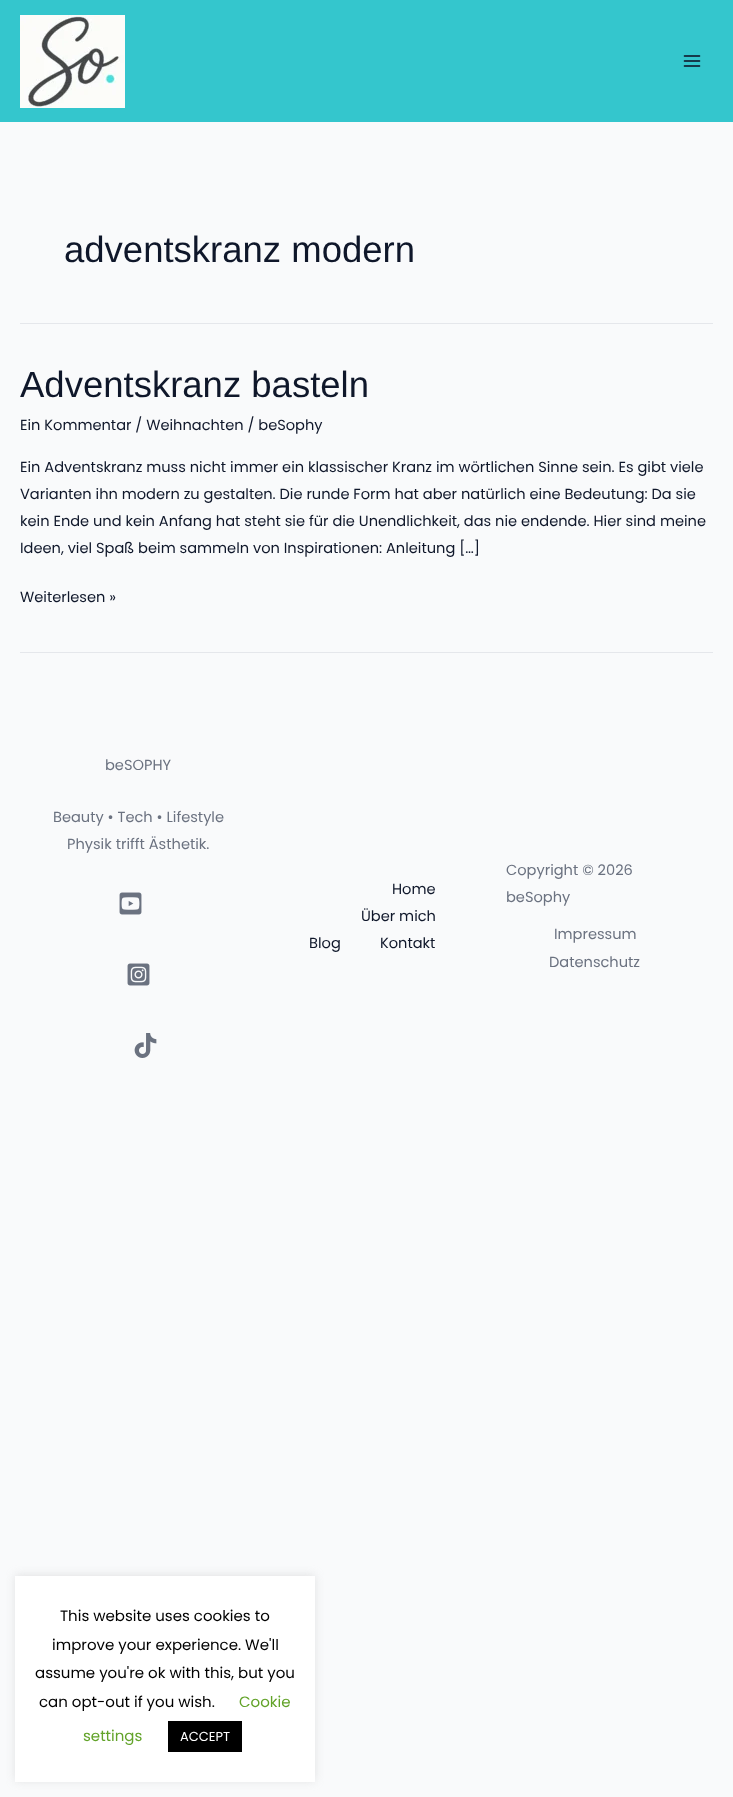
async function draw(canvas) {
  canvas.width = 733
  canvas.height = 1797
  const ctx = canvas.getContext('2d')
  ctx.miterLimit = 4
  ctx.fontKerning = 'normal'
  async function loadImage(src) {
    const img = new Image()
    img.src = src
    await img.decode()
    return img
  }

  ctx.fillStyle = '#f9fafb'
  ctx.fillRect(0, 0, 733, 1797)
  ctx.fillStyle = '#34c6cd'
  ctx.fillRect(0, 0, 733, 122)
  ctx.drawImage(await loadImage('image0.png'), 20, 15, 105, 93)
  ctx.drawImage(await loadImage('image1.png'), 683, 55, 18, 12)
  ctx.fillStyle = '#e5e7eb'
  ctx.fillRect(20, 323, 693, 1)
  ctx.font = '36.5px Liberation Sans'
  ctx.fillStyle = '#0f172a'
  ctx.fillText('adventskranz modern', 64, 262)
  ctx.fillStyle = '#e5e7eb'
  ctx.fillRect(20, 652, 693, 1)
  ctx.fillStyle = '#0f172a'
  ctx.fillText('Adventskranz basteln', 20, 397)
  ctx.font = '14.6px Poppins'
  ctx.fillText('Ein Kommentar / Weihnachten / beSophy', 20, 430)
  ctx.fillText('Ein Adventskranz muss nicht immer ein klassischer Kranz im wörtlichen Sinne sein. Es gibt viele', 20, 472)
  ctx.fillText('Varianten ihn modern zu gestalten. Die runde Form hat aber natürlich eine Bedeutung: Da sie', 20, 499)
  ctx.fillText('kein Ende und kein Anfang hat steht sie für die Unendlichkeit, das nie endende. Hier sind meine', 20, 526)
  ctx.fillText('Ideen, viel Spaß beim sammeln von Inspirationen: Anleitung […]', 20, 553)
  ctx.fillText('Weiterlesen »', 20, 602)
  ctx.fillStyle = '#6b7280'
  ctx.fillText('beSOPHY', 105, 770)
  ctx.fillText('Beauty • Tech • Lifestyle', 53, 822)
  ctx.fillText('Physik trifft Ästhetik.', 67, 849)
  ctx.drawImage(await loadImage('image2.png'), 119, 892, 23, 23)
  ctx.drawImage(await loadImage('image3.png'), 127, 963, 23, 23)
  ctx.drawImage(await loadImage('image4.png'), 134, 1033, 23, 25)
  ctx.fillStyle = '#0f172a'
  ctx.fillText('Home', 392, 894)
  ctx.fillText('Über mich', 361, 921)
  ctx.fillText('Blog', 309, 948)
  ctx.fillText('Kontakt', 380, 948)
  ctx.fillStyle = '#6b7280'
  ctx.fillText('Copyright © 2026', 506, 875)
  ctx.fillText('beSophy', 506, 902)
  ctx.fillText('Impressum', 554, 939)
  ctx.fillText('Datenschutz', 549, 967)
  ctx.fillStyle = '#acabab4d'
  ctx.filter = 'blur(5px)'
  ctx.beginPath()
  ctx.rect(15, 1575, 300, 206)
  ctx.fill()
  ctx.filter = 'none'
  ctx.fillStyle = '#fff'
  ctx.fillRect(15, 1576, 300, 206)
  ctx.font = '15px Poppins'
  ctx.fillStyle = '#000'
  ctx.fillText('This website uses cookies to', 60, 1621)
  ctx.fillText('improve your experience. We\'ll', 52, 1650)
  ctx.fillText('assume you\'re ok with this, but you', 35, 1678)
  ctx.fillText('can opt-out if you wish.', 39, 1707)
  ctx.fillStyle = '#62a329'
  ctx.fillText('Cookie', 239, 1707)
  ctx.fillText('settings', 83, 1741)
  ctx.fillStyle = '#000'
  ctx.fillRect(168, 1721, 74, 31)
  ctx.font = '13px Poppins'
  ctx.fillStyle = '#fff'
  ctx.fillText('ACCEPT', 180, 1741)
}

draw(document.querySelector('canvas'))
